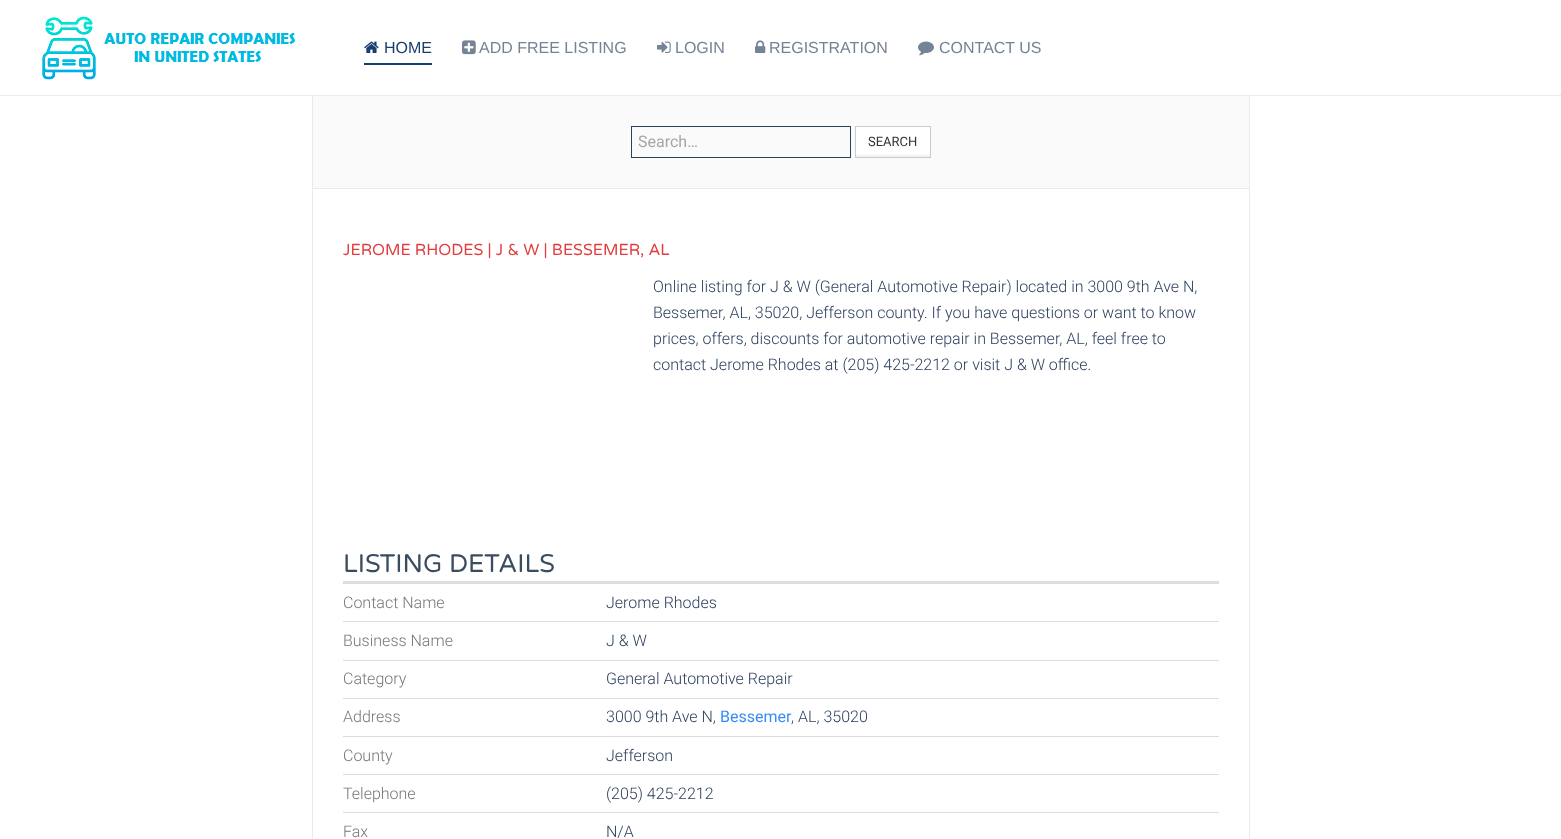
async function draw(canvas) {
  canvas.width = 1561
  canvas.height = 839
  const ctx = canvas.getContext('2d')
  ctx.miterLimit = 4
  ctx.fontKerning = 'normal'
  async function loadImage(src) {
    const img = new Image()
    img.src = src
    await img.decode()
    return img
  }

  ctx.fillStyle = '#fff'
  ctx.fillRect(0, 0, 1561, 839)
  ctx.drawImage(await loadImage('image0.png'), 42, 16, 253, 64)
  ctx.drawImage(await loadImage('image1.png'), 364, 41, 15, 12)
  ctx.font = '16px Liberation Sans'
  ctx.fillStyle = '#173e6d'
  ctx.fillText('HOME', 384, 53)
  ctx.fillRect(364, 63, 68, 2)
  ctx.drawImage(await loadImage('image2.png'), 462, 40, 14, 15)
  ctx.fillStyle = '#748395'
  ctx.fillText('ADD FREE LISTING', 479, 53)
  ctx.drawImage(await loadImage('image3.png'), 657, 41, 14, 12)
  ctx.fillText('LOGIN', 675, 53)
  ctx.drawImage(await loadImage('image4.png'), 755, 40, 11, 13)
  ctx.fillText('REGISTRATION', 769, 53)
  ctx.drawImage(await loadImage('image5.png'), 918, 41, 16, 15)
  ctx.fillText('CONTACT US', 939, 53)
  ctx.fillStyle = '#e7ebf0'
  ctx.fillRect(0, 95, 1561, 1)
  ctx.fillRect(312, 96, 1, 743)
  ctx.fillStyle = '#fafafa'
  ctx.fillRect(313, 96, 936, 92)
  ctx.fillStyle = '#e7ebf0'
  ctx.fillRect(313, 188, 936, 1)
  ctx.strokeStyle = '#2d405e'
  ctx.strokeRect(631.5, 126.5, 219, 31)
  ctx.font = '16px Roboto'
  ctx.fillStyle = '#a4a6a8'
  ctx.fillText('Search…', 638, 147)
  ctx.fillStyle = '#fff'
  ctx.fillRect(856, 127, 74, 28)
  ctx.fillStyle = '#f2f2f2'
  ctx.fillRect(856, 155, 74, 2)
  ctx.strokeStyle = '#ccc'
  ctx.strokeRect(855.5, 126.5, 75, 31)
  ctx.font = '13px Roboto'
  ctx.fillStyle = '#333'
  ctx.fillText('SEARCH', 868, 146)
  ctx.font = '16px Varela Round'
  ctx.fillStyle = '#e43c3e'
  ctx.fillText('JEROME RHODES | J & W | BESSEMER, AL', 343, 255)
  ctx.font = '300 16px Roboto'
  ctx.fillStyle = '#2d405e'
  ctx.fillText('Online listing for J & W (General Automotive Repair) located in 3000 9th Ave N,', 653, 292)
  ctx.fillText('Bessemer, AL, 35020, Jefferson county. If you have questions or want to know', 653, 318)
  ctx.fillText('prices, offers, discounts for automotive repair in Bessemer, AL, feel free to', 653, 344)
  ctx.fillText('contact Jerome Rhodes at (205) 425-2212 or visit J & W office.', 653, 370)
  ctx.fillStyle = '#ddd'
  ctx.fillRect(343, 581, 876, 3)
  ctx.font = '25.5px Varela Round'
  ctx.fillStyle = '#3a4c60'
  ctx.fillText('LISTING DETAILS', 343, 572)
  ctx.fillStyle = '#ddd'
  ctx.fillRect(343, 621, 876, 1)
  ctx.font = '300 16px Roboto'
  ctx.fillStyle = '#777'
  ctx.fillText('Contact Name', 343, 608)
  ctx.fillStyle = '#2d405e'
  ctx.fillText('Jerome Rhodes', 606, 608)
  ctx.fillStyle = '#ddd'
  ctx.fillRect(343, 660, 876, 1)
  ctx.fillStyle = '#777'
  ctx.fillText('Business Name', 343, 646)
  ctx.fillStyle = '#2d405e'
  ctx.fillText('J & W', 606, 646)
  ctx.fillStyle = '#ddd'
  ctx.fillRect(343, 698, 876, 1)
  ctx.fillStyle = '#777'
  ctx.fillText('Category', 343, 684)
  ctx.fillStyle = '#2d405e'
  ctx.fillText('General Automotive Repair', 606, 684)
  ctx.fillStyle = '#ddd'
  ctx.fillRect(343, 736, 876, 1)
  ctx.fillStyle = '#777'
  ctx.fillText('Address', 343, 722)
  ctx.fillStyle = '#2d405e'
  ctx.fillText('3000 9th Ave N,', 606, 722)
  ctx.font = '16px Roboto'
  ctx.fillStyle = '#378cf7'
  ctx.fillText('Bessemer', 720, 722)
  ctx.font = '300 16px Roboto'
  ctx.fillStyle = '#2d405e'
  ctx.fillText(', AL, 35020', 791, 722)
  ctx.fillStyle = '#ddd'
  ctx.fillRect(343, 774, 876, 1)
  ctx.fillStyle = '#777'
  ctx.fillText('County', 343, 761)
  ctx.fillStyle = '#2d405e'
  ctx.fillText('Jefferson', 606, 761)
  ctx.fillStyle = '#ddd'
  ctx.fillRect(343, 812, 876, 1)
  ctx.fillStyle = '#777'
  ctx.fillText('Telephone', 343, 799)
  ctx.fillStyle = '#2d405e'
  ctx.fillText('(205) 425-2212', 606, 799)
  ctx.fillStyle = '#777'
  ctx.fillText('Fax', 343, 837)
  ctx.fillStyle = '#2d405e'
  ctx.fillText('N/A', 606, 837)
  ctx.fillStyle = '#e7ebf0'
  ctx.fillRect(1249, 96, 1, 743)
}

draw(document.querySelector('canvas'))
